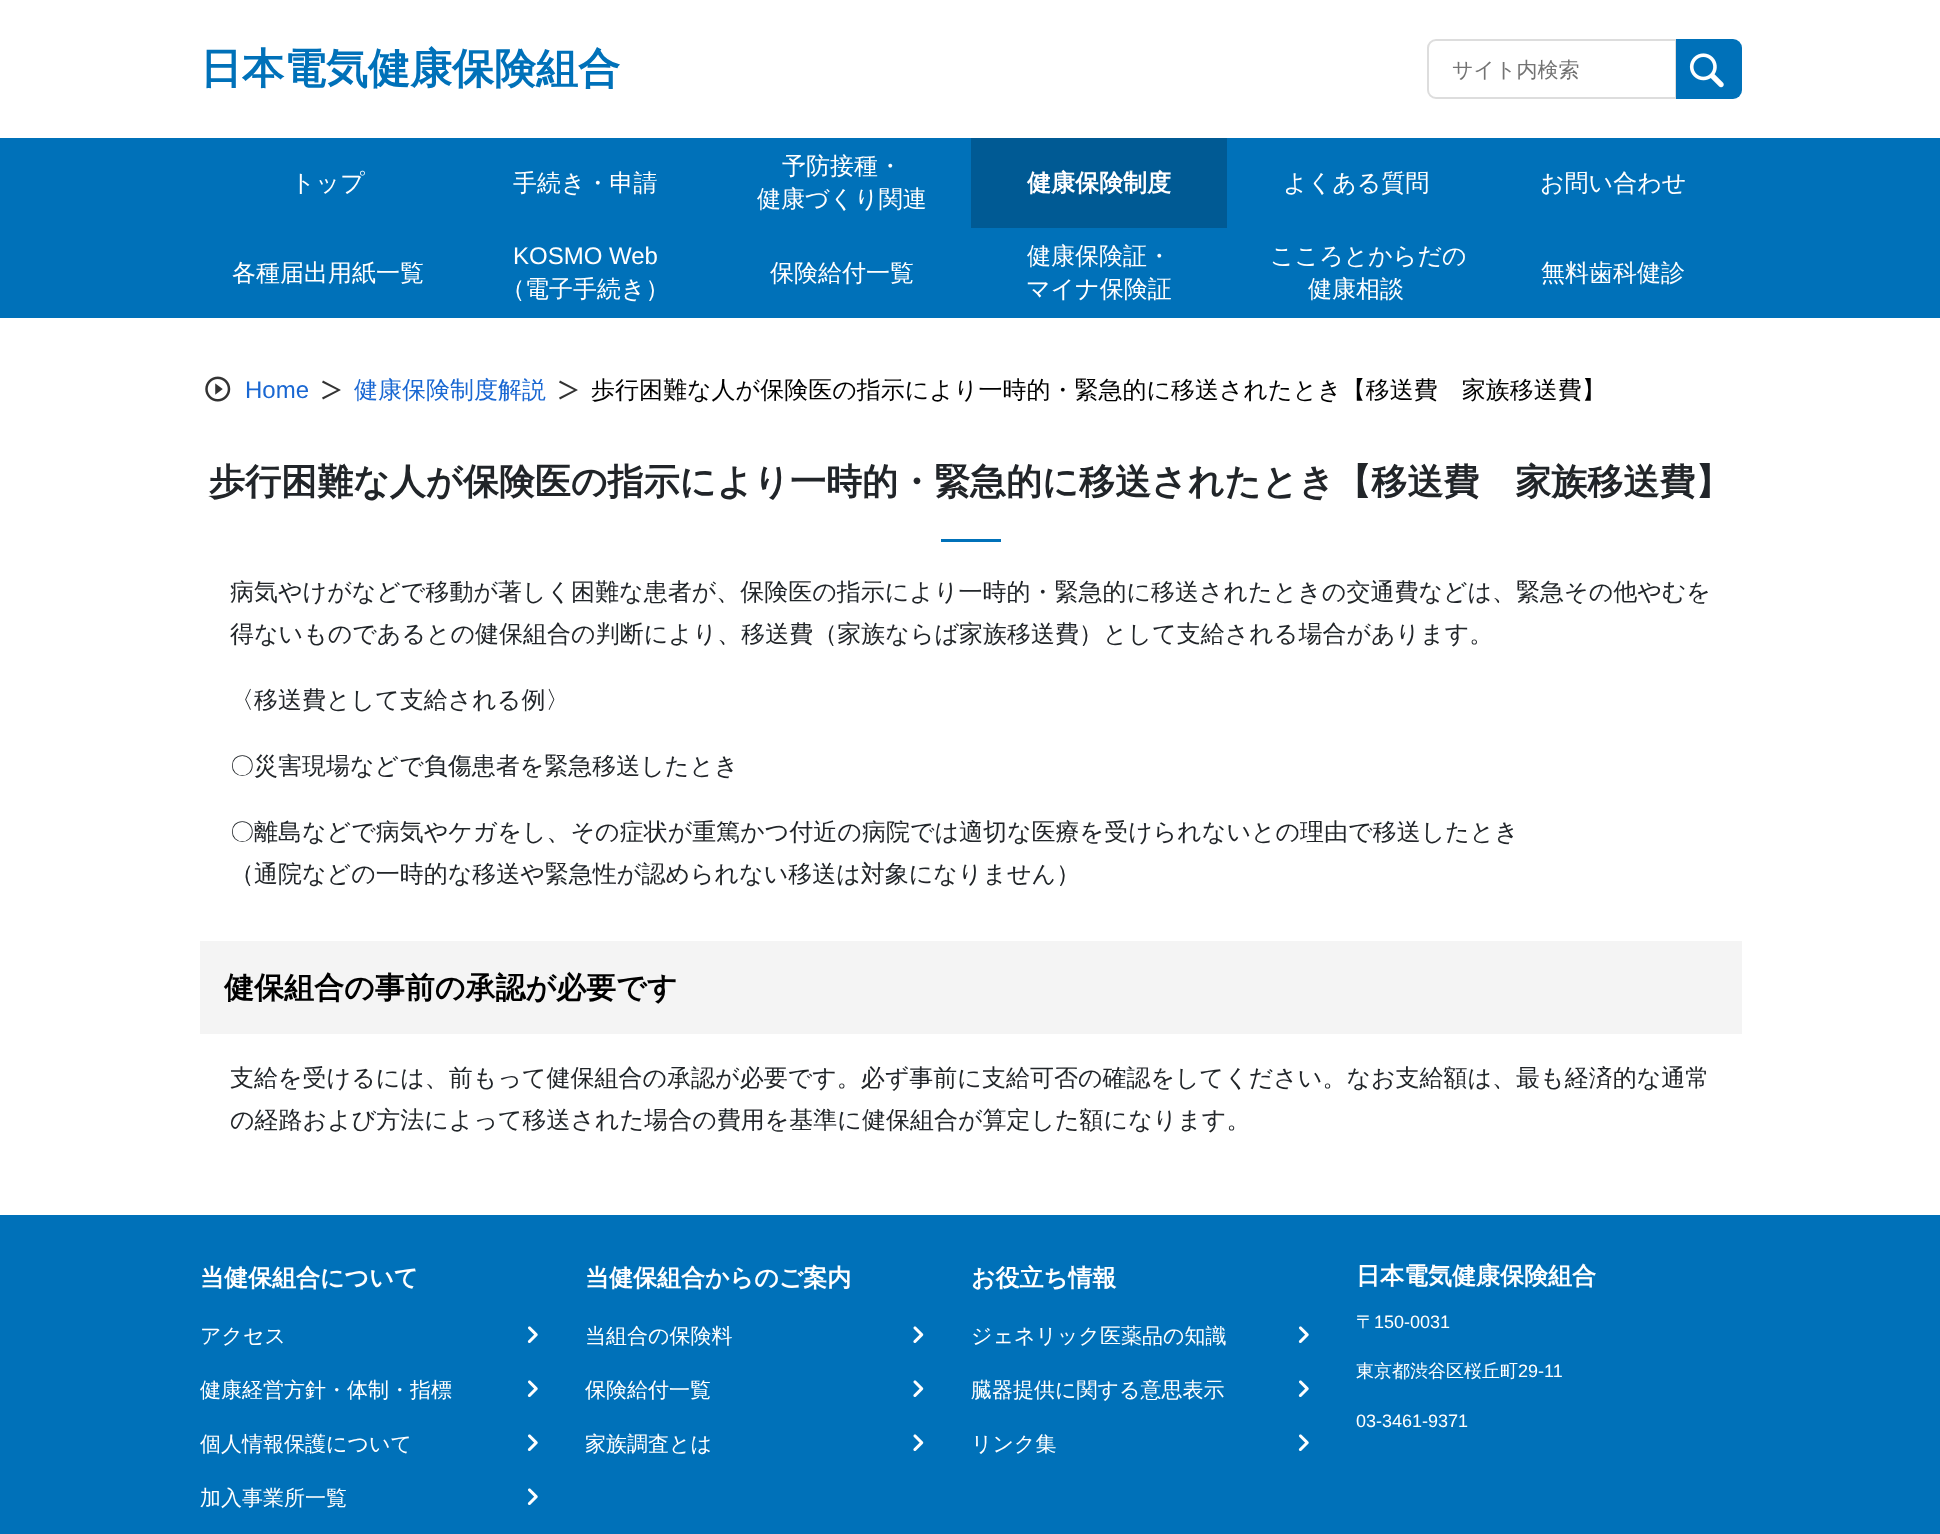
async function draw(canvas) {
  canvas.width = 1940
  canvas.height = 1534
  const ctx = canvas.getContext('2d')
  ctx.miterLimit = 4
  ctx.fontKerning = 'normal'
  async function loadImage(src) {
    const img = new Image()
    img.src = src
    await img.decode()
    return img
  }

  ctx.fillStyle = '#fff'
  ctx.fillRect(0, 0, 1940, 1534)
  ctx.font = 'bold 42px WenQuanYi Zen Hei'
  ctx.fillStyle = '#0071b9'
  ctx.fillText('日本電気健康保険組合', 200, 83)
  ctx.beginPath()
  ctx.roundRect(1428, 40, 248, 58, [8, 0, 0, 8])
  ctx.strokeStyle = '#ddd'
  ctx.lineWidth = 2
  ctx.stroke()
  ctx.font = '500 21px WenQuanYi Zen Hei'
  ctx.fillStyle = '#737373'
  ctx.fillText('サイト内検索', 1452, 77)
  ctx.fillStyle = '#0071b9'
  ctx.beginPath()
  ctx.roundRect(1676, 39, 66, 60, [0, 9, 9, 0])
  ctx.fill()
  ctx.drawImage(await loadImage('image0.png'), 1689, 53, 35, 35)
  ctx.fillRect(0, 138, 1940, 180)
  ctx.font = '500 24px WenQuanYi Zen Hei'
  ctx.fillStyle = '#fff'
  ctx.fillText('トップ', 291, 191)
  ctx.fillText('手続き・申請', 513, 191)
  ctx.fillText('予防接種・', 782, 174)
  ctx.fillText('健康づくり関連', 757, 207)
  ctx.fillStyle = '#005a94'
  ctx.fillRect(971, 138, 256, 90)
  ctx.font = 'bold 24px WenQuanYi Zen Hei'
  ctx.fillStyle = '#fff'
  ctx.fillText('健康保険制度', 1027, 191)
  ctx.font = '500 24px WenQuanYi Zen Hei'
  ctx.fillText('よくある質問', 1283, 191)
  ctx.fillText('お問い合わせ', 1540, 191)
  ctx.fillText('各種届出用紙一覧', 232, 281)
  ctx.font = '24px Liberation Sans'
  ctx.fillText('KOSMO Web', 513, 264)
  ctx.font = '500 24px WenQuanYi Zen Hei'
  ctx.fillText('（電子手続き）', 501, 297)
  ctx.fillText('保険給付一覧', 770, 281)
  ctx.fillText('健康保険証・', 1027, 264)
  ctx.fillText('マイナ保険証', 1026, 297)
  ctx.fillText('こころとからだの', 1270, 264)
  ctx.fillText('健康相談', 1308, 297)
  ctx.fillText('無料歯科健診', 1541, 281)
  ctx.drawImage(await loadImage('image1.png'), 205, 376, 26, 26)
  ctx.font = '24px Liberation Sans'
  ctx.fillStyle = '#1967d2'
  ctx.fillText('Home', 245, 398)
  ctx.fillStyle = '#333'
  ctx.beginPath()
  ctx.moveTo(341, 390)
  ctx.lineTo(323, 380.5)
  ctx.lineTo(322, 382.5)
  ctx.lineTo(337, 390)
  ctx.lineTo(322, 397.5)
  ctx.lineTo(323, 399.5)
  ctx.closePath()
  ctx.fill()
  ctx.font = '500 24px WenQuanYi Zen Hei'
  ctx.fillStyle = '#1967d2'
  ctx.fillText('健康保険制度解説', 354, 398)
  ctx.fillStyle = '#333'
  ctx.beginPath()
  ctx.moveTo(578, 390)
  ctx.lineTo(560, 380.5)
  ctx.lineTo(559, 382.5)
  ctx.lineTo(574, 390)
  ctx.lineTo(559, 397.5)
  ctx.lineTo(560, 399.5)
  ctx.closePath()
  ctx.fill()
  ctx.fillStyle = '#000'
  ctx.fillText('歩行困難な人が保険医の指示により一時的・緊急的に移送されたとき【移送費　家族移送費】', 591, 398)
  ctx.font = 'bold 36px WenQuanYi Zen Hei'
  ctx.fillStyle = '#212529'
  ctx.fillText('歩行困難な人が保険医の指示により一時的・緊急的に移送されたとき【移送費　家族移送費】', 209, 494)
  ctx.fillStyle = '#0071b9'
  ctx.fillRect(941, 539, 60, 3)
  ctx.font = '500 24px WenQuanYi Zen Hei'
  ctx.fillStyle = '#212529'
  ctx.fillText('病気やけがなどで移動が著しく困難な患者が、保険医の指示により一時的・緊急的に移送されたときの交通費などは、緊急その他やむを', 230, 600)
  ctx.fillText('得ないものであるとの健保組合の判断により、移送費（家族ならば家族移送費）として支給される場合があります。', 230, 642)
  ctx.fillText('〈移送費として支給される例〉', 230, 708)
  ctx.fillText('〇災害現場などで負傷患者を緊急移送したとき', 230, 774)
  ctx.fillText('〇離島などで病気やケガをし、その症状が重篤かつ付近の病院では適切な医療を受けられないとの理由で移送したとき', 230, 840)
  ctx.fillText('（通院などの一時的な移送や緊急性が認められない移送は対象になりません）', 230, 882)
  ctx.fillStyle = '#f4f4f4'
  ctx.fillRect(200, 941, 1542, 93)
  ctx.font = 'bold 30px WenQuanYi Zen Hei'
  ctx.fillStyle = '#000'
  ctx.fillText('健保組合の事前の承認が必要です', 224, 998)
  ctx.font = '500 24px WenQuanYi Zen Hei'
  ctx.fillStyle = '#212529'
  ctx.fillText('支給を受けるには、前もって健保組合の承認が必要です。必ず事前に支給可否の確認をしてください。なお支給額は、最も経済的な通常', 230, 1086)
  ctx.fillText('の経路および方法によって移送された場合の費用を基準に健保組合が算定した額になります。', 230, 1128)
  ctx.fillStyle = '#0071b9'
  ctx.fillRect(0, 1215, 1940, 319)
  ctx.font = 'bold 24px WenQuanYi Zen Hei'
  ctx.fillStyle = '#fff'
  ctx.fillText('当健保組合について', 200, 1286)
  ctx.font = '500 21px WenQuanYi Zen Hei'
  ctx.fillText('アクセス', 200, 1343)
  ctx.drawImage(await loadImage('image2.png'), 527, 1326, 11, 17)
  ctx.fillText('健康経営方針・体制・指標', 200, 1397)
  ctx.drawImage(await loadImage('image2.png'), 527, 1380, 11, 17)
  ctx.fillText('個人情報保護について', 200, 1451)
  ctx.drawImage(await loadImage('image2.png'), 527, 1434, 11, 17)
  ctx.fillText('加入事業所一覧', 200, 1505)
  ctx.drawImage(await loadImage('image2.png'), 527, 1488, 11, 17)
  ctx.font = 'bold 24px WenQuanYi Zen Hei'
  ctx.fillText('当健保組合からのご案内', 585, 1286)
  ctx.font = '500 21px WenQuanYi Zen Hei'
  ctx.fillText('当組合の保険料', 585, 1343)
  ctx.drawImage(await loadImage('image3.png'), 913, 1326, 11, 17)
  ctx.fillText('保険給付一覧', 585, 1397)
  ctx.drawImage(await loadImage('image3.png'), 913, 1380, 11, 17)
  ctx.fillText('家族調査とは', 585, 1451)
  ctx.drawImage(await loadImage('image3.png'), 913, 1434, 11, 17)
  ctx.font = 'bold 24px WenQuanYi Zen Hei'
  ctx.fillText('お役立ち情報', 971, 1286)
  ctx.font = '500 21px WenQuanYi Zen Hei'
  ctx.fillText('ジェネリック医薬品の知識', 971, 1343)
  ctx.drawImage(await loadImage('image2.png'), 1298, 1326, 11, 17)
  ctx.fillText('臓器提供に関する意思表示', 971, 1397)
  ctx.drawImage(await loadImage('image2.png'), 1298, 1380, 11, 17)
  ctx.fillText('リンク集', 971, 1451)
  ctx.drawImage(await loadImage('image2.png'), 1298, 1434, 11, 17)
  ctx.font = 'bold 24px WenQuanYi Zen Hei'
  ctx.fillText('日本電気健康保険組合', 1356, 1284)
  ctx.font = '500 18px WenQuanYi Zen Hei'
  ctx.fillText('〒', 1356, 1328)
  ctx.font = '18px Liberation Sans'
  ctx.fillText('150-0031', 1374, 1328)
  ctx.font = '500 18px WenQuanYi Zen Hei'
  ctx.fillText('東京都渋谷区桜丘町', 1356, 1377)
  ctx.font = '18px Liberation Sans'
  ctx.fillText('29-11', 1518, 1377)
  ctx.fillText('03-3461-9371', 1356, 1427)
}

draw(document.querySelector('canvas'))
